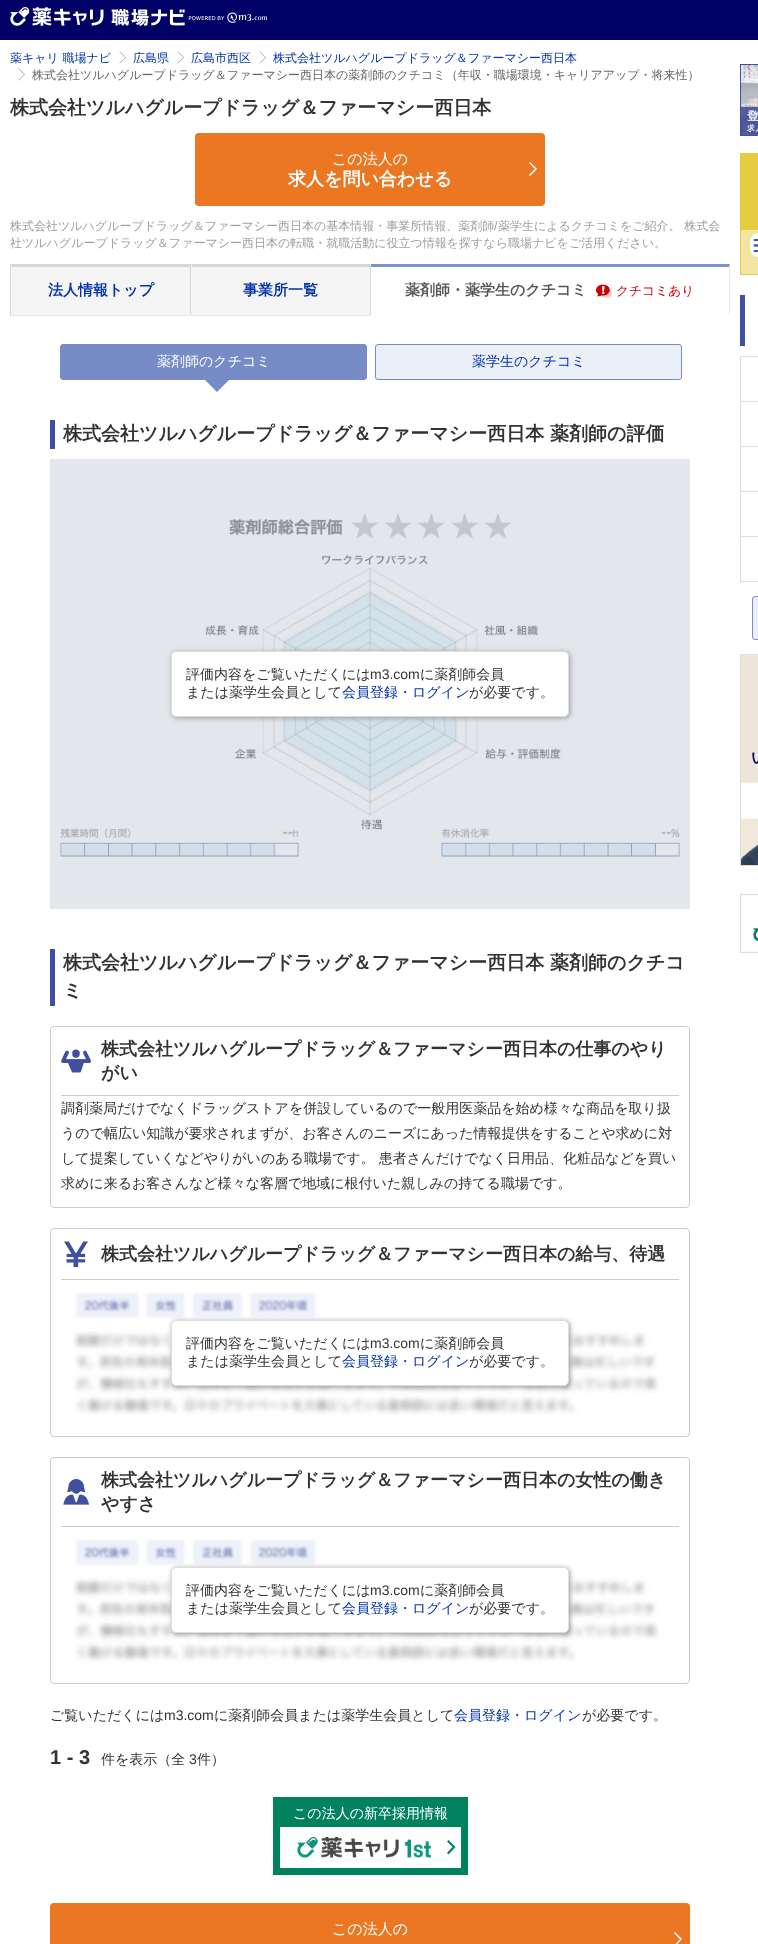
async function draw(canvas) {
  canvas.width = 758
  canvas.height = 1944
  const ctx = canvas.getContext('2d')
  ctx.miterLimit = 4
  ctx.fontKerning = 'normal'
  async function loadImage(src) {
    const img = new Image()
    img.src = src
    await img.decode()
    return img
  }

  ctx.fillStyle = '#fff'
  ctx.fillRect(0, 0, 758, 1944)
  ctx.fillStyle = '#006'
  ctx.fillRect(0, 0, 758, 40)
  ctx.drawImage(await loadImage('image0.png'), 10, 7, 257, 19)
  ctx.font = '500 12px WenQuanYi Zen Hei'
  ctx.fillStyle = '#03a'
  ctx.fillText('薬キャリ 職場ナビ', 10, 62)
  ctx.drawImage(await loadImage('image1.png'), 119, 51, 7, 13)
  ctx.fillText('広島県', 133, 62)
  ctx.drawImage(await loadImage('image1.png'), 177, 51, 7, 13)
  ctx.fillText('広島市西区', 191, 62)
  ctx.drawImage(await loadImage('image1.png'), 259, 51, 7, 13)
  ctx.fillText('株式会社ツルハグループドラッグ＆ファーマシー西日本', 273, 62)
  ctx.drawImage(await loadImage('image1.png'), 18, 68, 7, 13)
  ctx.fillStyle = '#666'
  ctx.fillText('株式会社ツルハグループドラッグ＆ファーマシー西日本の薬剤師のクチコミ（年収・職場環境・キャリアアップ・将来性）', 32, 79)
  ctx.font = 'bold 19px WenQuanYi Zen Hei'
  ctx.fillStyle = '#333'
  ctx.fillText('株式会社ツルハグループドラッグ＆ファーマシー西日本', 10, 114)
  ctx.fillStyle = '#ec7722'
  ctx.beginPath()
  ctx.roundRect(195, 133, 350, 73, 4)
  ctx.fill()
  ctx.font = '500 15px WenQuanYi Zen Hei'
  ctx.fillStyle = '#fff'
  ctx.fillText('この法人の', 332, 164)
  ctx.beginPath()
  ctx.moveTo(530, 162)
  ctx.lineTo(537, 169)
  ctx.lineTo(530, 176)
  ctx.lineTo(523, 169)
  ctx.closePath()
  ctx.fill()
  ctx.fillStyle = '#ec7722'
  ctx.beginPath()
  ctx.moveTo(528, 162)
  ctx.lineTo(535, 169)
  ctx.lineTo(528, 176)
  ctx.lineTo(521, 169)
  ctx.closePath()
  ctx.fill()
  ctx.font = 'bold 18px WenQuanYi Zen Hei'
  ctx.fillStyle = '#fff'
  ctx.fillText('求人を問い合わせる', 288, 185)
  ctx.font = '500 12px WenQuanYi Zen Hei'
  ctx.fillStyle = '#9e9e9e'
  ctx.fillText('株式会社ツルハグループドラッグ＆ファーマシー西日本の基本情報・事業所情報、薬剤師', 10, 230)
  ctx.font = '12px Liberation Sans'
  ctx.fillText('/', 494, 230)
  ctx.font = '500 12px WenQuanYi Zen Hei'
  ctx.fillText('薬学生によるクチコミをご紹介。 株式会', 498, 230)
  ctx.fillText('社ツルハグループドラッグ＆ファーマシー西日本の転職・就職活動に役立つ情報を探すなら職場ナビをご活用ください。', 10, 247)
  ctx.fillStyle = '#d7d7d7'
  ctx.fillRect(10, 264, 1, 52)
  ctx.fillStyle = '#e5e5e5'
  ctx.fillRect(11, 315, 360, 1)
  ctx.fillStyle = '#f5f5f5'
  ctx.fillRect(11, 264, 360, 51)
  ctx.fillStyle = '#d7d7d7'
  ctx.beginPath()
  ctx.moveTo(11, 264)
  ctx.lineTo(191, 264)
  ctx.lineTo(190, 267)
  ctx.lineTo(12, 267)
  ctx.closePath()
  ctx.fill()
  ctx.beginPath()
  ctx.moveTo(191, 264)
  ctx.lineTo(191, 315)
  ctx.lineTo(190, 314)
  ctx.lineTo(190, 267)
  ctx.closePath()
  ctx.fill()
  ctx.font = 'bold 15px WenQuanYi Zen Hei'
  ctx.fillStyle = '#03a'
  ctx.fillText('法人情報トップ', 48, 295)
  ctx.fillStyle = '#d7d7d7'
  ctx.beginPath()
  ctx.moveTo(191, 264)
  ctx.lineTo(371, 264)
  ctx.lineTo(370, 267)
  ctx.lineTo(192, 267)
  ctx.closePath()
  ctx.fill()
  ctx.beginPath()
  ctx.moveTo(371, 264)
  ctx.lineTo(371, 315)
  ctx.lineTo(370, 314)
  ctx.lineTo(370, 267)
  ctx.closePath()
  ctx.fill()
  ctx.fillStyle = '#03a'
  ctx.fillText('事業所一覧', 243, 295)
  ctx.fillStyle = '#7b92d4'
  ctx.beginPath()
  ctx.moveTo(371, 264)
  ctx.lineTo(730, 264)
  ctx.lineTo(729, 267)
  ctx.lineTo(371, 267)
  ctx.closePath()
  ctx.fill()
  ctx.fillStyle = '#e5e5e5'
  ctx.beginPath()
  ctx.moveTo(730, 264)
  ctx.lineTo(730, 315)
  ctx.lineTo(729, 314)
  ctx.lineTo(729, 267)
  ctx.closePath()
  ctx.fill()
  ctx.fillStyle = '#555'
  ctx.fillText('薬剤師・薬学生のクチコミ', 405, 295)
  ctx.drawImage(await loadImage('image2.png'), 596, 284, 16, 14)
  ctx.font = '500 12.75px WenQuanYi Zen Hei'
  ctx.fillStyle = '#c00'
  ctx.fillText('クチコミあり', 616, 295)
  ctx.fillStyle = '#778cc6'
  ctx.beginPath()
  ctx.roundRect(60.5, 344.5, 306, 35, 2.5)
  ctx.fill()
  ctx.strokeStyle = '#778cc6'
  ctx.stroke()
  ctx.font = '500 14px WenQuanYi Zen Hei'
  ctx.fillStyle = '#fff'
  ctx.fillText('薬剤師のクチコミ', 157, 366)
  ctx.fillStyle = '#778cc6'
  ctx.beginPath()
  ctx.moveTo(205, 380)
  ctx.lineTo(229, 380)
  ctx.lineTo(217, 392)
  ctx.closePath()
  ctx.fill()
  ctx.fillStyle = '#eaeff8'
  ctx.beginPath()
  ctx.roundRect(375.5, 344.5, 306, 35, 2.5)
  ctx.fill()
  ctx.stroke()
  ctx.fillStyle = '#03a'
  ctx.fillText('薬学生のクチコミ', 472, 366)
  ctx.fillStyle = '#40509e'
  ctx.fillRect(50, 420, 5, 29)
  ctx.font = 'bold 19px WenQuanYi Zen Hei'
  ctx.fillStyle = '#333'
  ctx.fillText('株式会社ツルハグループドラッグ＆ファーマシー西日本', 63, 440)
  ctx.fillText('薬剤師の評価', 550, 440)
  ctx.fillStyle = '#e3e6eb'
  ctx.fillRect(50, 459, 640, 450)
  ctx.drawImage(await loadImage('image3.png'), 60, 513, 620, 344)
  ctx.fillStyle = '#999'
  ctx.filter = 'blur(2.5px)'
  ctx.beginPath()
  ctx.roundRect(172, 652, 398, 66, 5)
  ctx.fill()
  ctx.filter = 'none'
  ctx.fillStyle = '#fff'
  ctx.beginPath()
  ctx.roundRect(171.5, 651.5, 397, 65, 4.5)
  ctx.fill()
  ctx.strokeStyle = '#dedede'
  ctx.stroke()
  ctx.font = '500 14px WenQuanYi Zen Hei'
  ctx.fillStyle = '#333'
  ctx.fillText('評価内容をご覧いただくには', 186, 679)
  ctx.font = '14px Liberation Sans'
  ctx.fillText('m3.com', 370, 679)
  ctx.font = '500 14px WenQuanYi Zen Hei'
  ctx.fillText('に薬剤師会員', 420, 679)
  ctx.fillText('または薬学生会員として', 186, 697)
  ctx.fillStyle = '#03a'
  ctx.fillText('会員登録・ログイン', 342, 697)
  ctx.fillStyle = '#333'
  ctx.fillText('が必要です。', 469, 697)
  ctx.fillStyle = '#40509e'
  ctx.fillRect(50, 949, 5, 57)
  ctx.font = 'bold 19px WenQuanYi Zen Hei'
  ctx.fillStyle = '#333'
  ctx.fillText('株式会社ツルハグループドラッグ＆ファーマシー西日本', 63, 969)
  ctx.fillText('薬剤師のクチコ', 550, 969)
  ctx.fillText('ミ', 63, 997)
  ctx.beginPath()
  ctx.roundRect(50.5, 1026.5, 639, 181, 3.5)
  ctx.strokeStyle = '#ccc'
  ctx.stroke()
  ctx.fillStyle = '#ccc'
  ctx.fillRect(61, 1095, 618, 1)
  ctx.drawImage(await loadImage('image4.png'), 61, 1049, 30, 24)
  ctx.font = 'bold 18px WenQuanYi Zen Hei'
  ctx.fillStyle = '#333'
  ctx.fillText('株式会社ツルハグループドラッグ＆ファーマシー西日本の仕事のやり', 101, 1055)
  ctx.fillText('がい', 101, 1079)
  ctx.font = '500 14px WenQuanYi Zen Hei'
  ctx.fillText('調剤薬局だけでなくドラッグストアを併設しているので一般用医薬品を始め様々な商品を取り扱', 61, 1113)
  ctx.fillText('うので幅広い知識が要求されまずが、お客さんのニーズにあった情報提供をすることや求めに対', 61, 1138)
  ctx.fillText('して提案していくなどやりがいのある職場です。 患者さんだけでなく日用品、化粧品などを買い', 61, 1163)
  ctx.fillText('求めに来るお客さんなど様々な客層で地域に根付いた親しみの持てる職場です。', 61, 1188)
  ctx.beginPath()
  ctx.roundRect(50.5, 1228.5, 639, 208, 3.5)
  ctx.stroke()
  ctx.fillStyle = '#ccc'
  ctx.fillRect(61, 1279, 618, 1)
  ctx.drawImage(await loadImage('image5.png'), 64, 1241, 24, 26)
  ctx.font = 'bold 18px WenQuanYi Zen Hei'
  ctx.fillStyle = '#333'
  ctx.fillText('株式会社ツルハグループドラッグ＆ファーマシー西日本の給与、待遇', 101, 1260)
  ctx.drawImage(await loadImage('image6.png'), 73, 1292, 586, 123)
  ctx.fillStyle = '#999'
  ctx.filter = 'blur(2.5px)'
  ctx.beginPath()
  ctx.roundRect(172, 1321, 398, 66, 5)
  ctx.fill()
  ctx.filter = 'none'
  ctx.fillStyle = '#fff'
  ctx.beginPath()
  ctx.roundRect(171.5, 1320.5, 397, 65, 4.5)
  ctx.fill()
  ctx.strokeStyle = '#dedede'
  ctx.stroke()
  ctx.font = '500 14px WenQuanYi Zen Hei'
  ctx.fillStyle = '#333'
  ctx.fillText('評価内容をご覧いただくには', 186, 1348)
  ctx.font = '14px Liberation Sans'
  ctx.fillText('m3.com', 370, 1348)
  ctx.font = '500 14px WenQuanYi Zen Hei'
  ctx.fillText('に薬剤師会員', 420, 1348)
  ctx.fillText('または薬学生会員として', 186, 1366)
  ctx.fillStyle = '#03a'
  ctx.fillText('会員登録・ログイン', 342, 1366)
  ctx.fillStyle = '#333'
  ctx.fillText('が必要です。', 469, 1366)
  ctx.beginPath()
  ctx.roundRect(50.5, 1457.5, 639, 226, 3.5)
  ctx.strokeStyle = '#ccc'
  ctx.stroke()
  ctx.fillStyle = '#ccc'
  ctx.fillRect(61, 1526, 618, 1)
  ctx.drawImage(await loadImage('image7.png'), 63, 1479, 26, 26)
  ctx.font = 'bold 18px WenQuanYi Zen Hei'
  ctx.fillStyle = '#333'
  ctx.fillText('株式会社ツルハグループドラッグ＆ファーマシー西日本の女性の働き', 101, 1486)
  ctx.fillText('やすさ', 101, 1510)
  ctx.drawImage(await loadImage('image8.png'), 73, 1539, 586, 123)
  ctx.fillStyle = '#999'
  ctx.filter = 'blur(2.5px)'
  ctx.beginPath()
  ctx.roundRect(172, 1568, 398, 66, 5)
  ctx.fill()
  ctx.filter = 'none'
  ctx.fillStyle = '#fff'
  ctx.beginPath()
  ctx.roundRect(171.5, 1567.5, 397, 65, 4.5)
  ctx.fill()
  ctx.strokeStyle = '#dedede'
  ctx.stroke()
  ctx.font = '500 14px WenQuanYi Zen Hei'
  ctx.fillStyle = '#333'
  ctx.fillText('評価内容をご覧いただくには', 186, 1595)
  ctx.font = '14px Liberation Sans'
  ctx.fillText('m3.com', 370, 1595)
  ctx.font = '500 14px WenQuanYi Zen Hei'
  ctx.fillText('に薬剤師会員', 420, 1595)
  ctx.fillText('または薬学生会員として', 186, 1613)
  ctx.fillStyle = '#03a'
  ctx.fillText('会員登録・ログイン', 342, 1613)
  ctx.fillStyle = '#333'
  ctx.fillText('が必要です。', 469, 1613)
  ctx.fillText('ご覧いただくには', 50, 1720)
  ctx.font = '14px Liberation Sans'
  ctx.fillText('m3.com', 164, 1720)
  ctx.font = '500 14px WenQuanYi Zen Hei'
  ctx.fillText('に薬剤師会員または薬学生会員として', 214, 1720)
  ctx.fillStyle = '#03a'
  ctx.fillText('会員登録・ログイン', 454, 1720)
  ctx.fillStyle = '#333'
  ctx.fillText('が必要です。', 582, 1720)
  ctx.font = 'bold 20px Liberation Sans'
  ctx.fillText('1 - 3', 50, 1764)
  ctx.font = '500 14px WenQuanYi Zen Hei'
  ctx.fillText('件を表示（全', 101, 1764)
  ctx.font = '14px Liberation Sans'
  ctx.fillText('3', 189, 1764)
  ctx.font = '500 14px WenQuanYi Zen Hei'
  ctx.fillText('件）', 197, 1764)
  ctx.fillStyle = '#00825f'
  ctx.fillRect(273, 1797, 195, 78)
  ctx.fillStyle = '#fff'
  ctx.fillText('この法人の新卒採用情報', 293, 1818)
  ctx.fillRect(280, 1827, 181, 41)
  ctx.drawImage(await loadImage('image9.png'), 297, 1837, 134, 21)
  ctx.fillStyle = '#00825f'
  ctx.beginPath()
  ctx.moveTo(448.5, 1840)
  ctx.lineTo(455.5, 1847)
  ctx.lineTo(448.5, 1854.5)
  ctx.lineTo(441.5, 1847)
  ctx.closePath()
  ctx.fill()
  ctx.fillStyle = '#fff'
  ctx.beginPath()
  ctx.moveTo(445.5, 1840)
  ctx.lineTo(452.5, 1847)
  ctx.lineTo(445.5, 1854.5)
  ctx.lineTo(438.5, 1847)
  ctx.closePath()
  ctx.fill()
  ctx.fillStyle = '#ec7722'
  ctx.beginPath()
  ctx.roundRect(50, 1903, 640, 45, 4)
  ctx.fill()
  ctx.font = '500 15px WenQuanYi Zen Hei'
  ctx.fillStyle = '#fff'
  ctx.fillText('この法人の', 332, 1934)
  ctx.beginPath()
  ctx.moveTo(675, 1932)
  ctx.lineTo(682, 1939)
  ctx.lineTo(675, 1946.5)
  ctx.lineTo(668, 1939)
  ctx.closePath()
  ctx.fill()
  ctx.fillStyle = '#ec7722'
  ctx.beginPath()
  ctx.moveTo(673, 1932)
  ctx.lineTo(680, 1939.5)
  ctx.lineTo(673, 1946.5)
  ctx.lineTo(666, 1939)
  ctx.closePath()
  ctx.fill()
  ctx.strokeStyle = '#40509e'
  ctx.strokeRect(740.5, 64.5, 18, 71)
  ctx.drawImage(await loadImage('image10.png'), 741, 65, 17, 70)
  ctx.fillStyle = '#e5cb40'
  ctx.fillRect(740, 153, 18, 122)
  ctx.drawImage(await loadImage('image11.png'), 741, 230, 17, 44)
  ctx.fillStyle = '#40509e'
  ctx.fillRect(740, 295, 5, 51)
  ctx.fillStyle = '#dedede'
  ctx.fillRect(740, 356, 18, 1)
  ctx.fillRect(740, 356, 1, 226)
  ctx.fillRect(741, 401, 17, 1)
  ctx.fillRect(741, 446, 17, 1)
  ctx.fillRect(741, 491, 17, 1)
  ctx.fillRect(741, 536, 17, 1)
  ctx.fillRect(741, 581, 17, 1)
  ctx.fillStyle = '#eaeff8'
  ctx.beginPath()
  ctx.roundRect(752.5, 596.5, 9, 43, 2.5)
  ctx.fill()
  ctx.strokeStyle = '#778cc6'
  ctx.stroke()
  ctx.strokeStyle = '#dedede'
  ctx.strokeRect(740.5, 654.5, 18, 211)
  ctx.fillStyle = '#ede6da'
  ctx.fillRect(741, 655, 17, 127)
  ctx.font = 'bold 16px WenQuanYi Zen Hei'
  ctx.fillStyle = '#006'
  ctx.fillText('い', 751, 763)
  ctx.drawImage(await loadImage('image12.png'), 741, 782, 17, 83)
  ctx.strokeRect(740.5, 894.5, 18, 58)
  ctx.drawImage(await loadImage('image13.png'), 741, 895, 17, 57)
}

draw(document.querySelector('canvas'))
